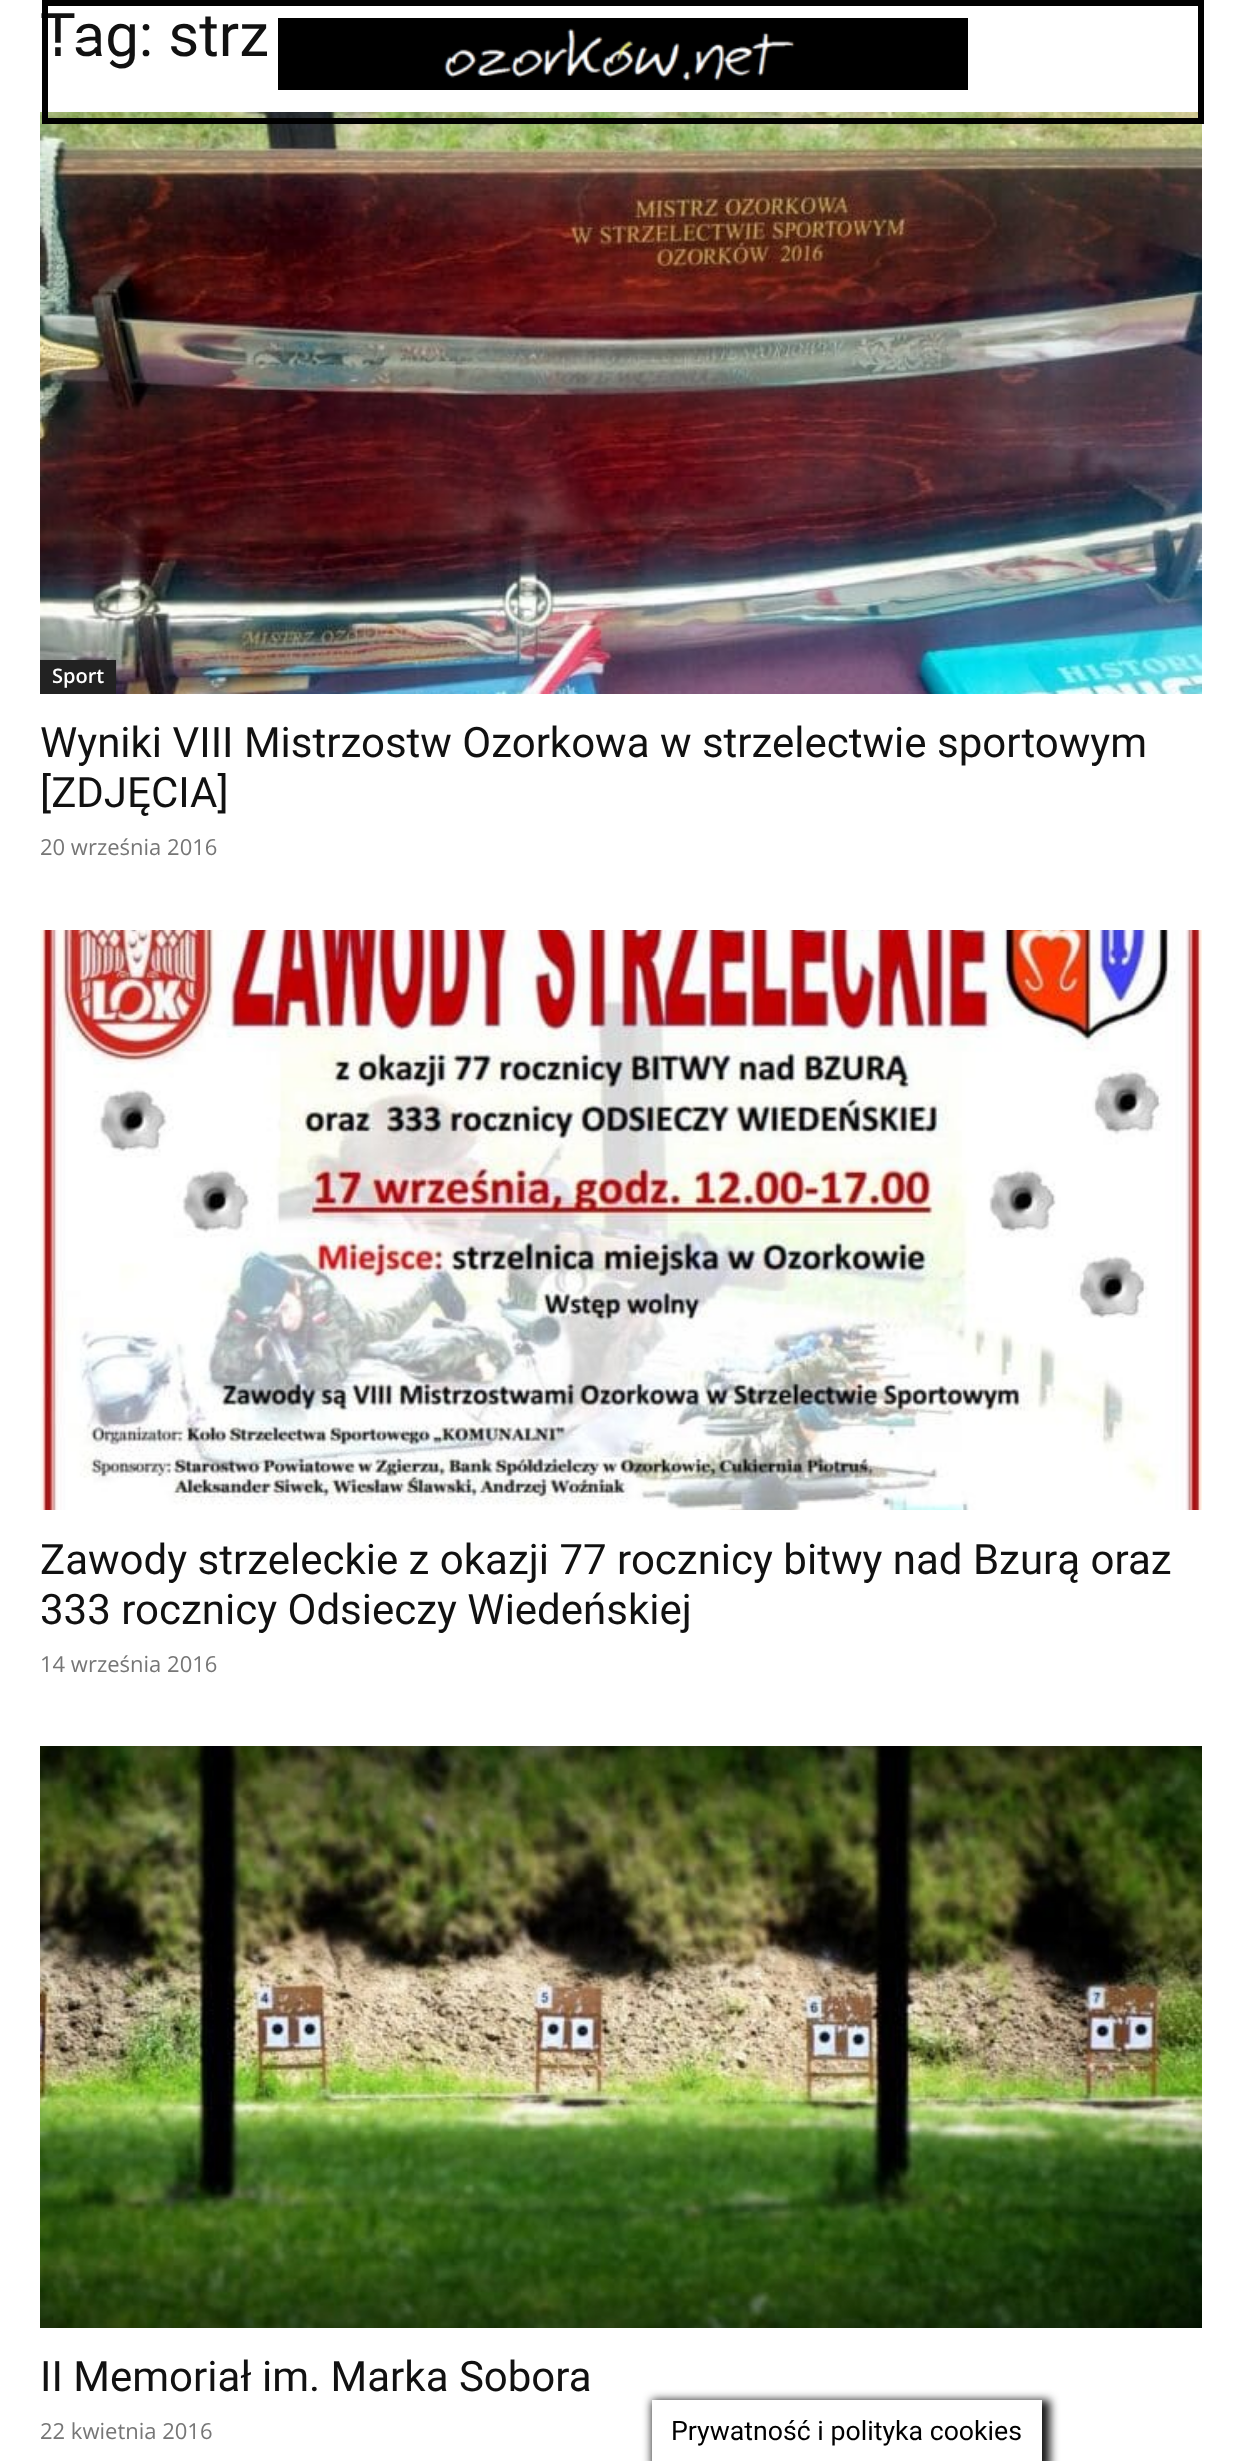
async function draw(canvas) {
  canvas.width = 1242
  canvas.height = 2461
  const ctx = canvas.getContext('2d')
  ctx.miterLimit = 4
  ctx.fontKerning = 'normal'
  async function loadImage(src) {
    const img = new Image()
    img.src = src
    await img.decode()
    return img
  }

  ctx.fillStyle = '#fff'
  ctx.fillRect(0, 0, 1242, 2461)
  ctx.font = '60px Roboto'
  ctx.fillStyle = '#111'
  ctx.fillText('Tag: strz', 40, 56)
  ctx.drawImage(await loadImage('image2.png'), 40, 112, 1162, 582)
  ctx.strokeStyle = '#000'
  ctx.lineWidth = 6
  ctx.strokeRect(45, 3, 1156, 118)
  ctx.drawImage(await loadImage('image0.png'), 55, 42, 43, 15)
  ctx.fillStyle = '#000'
  ctx.fillRect(278, 18, 690, 72)
  ctx.drawImage(await loadImage('image1.png'), 444, 28, 351, 53)
  ctx.fillStyle = '#222'
  ctx.fillRect(40, 660, 76, 34)
  ctx.font = '600 20px Open Sans'
  ctx.fillStyle = '#fff'
  ctx.fillText('Sport', 52, 683)
  ctx.font = '42px Roboto'
  ctx.fillStyle = '#111'
  ctx.fillText('Wyniki VIII Mistrzostw Ozorkowa w strzelectwie sportowym', 40, 757)
  ctx.fillText('[ZDJĘCIA]', 40, 807)
  ctx.font = '22px Open Sans'
  ctx.fillStyle = '#767676'
  ctx.fillText('20 września 2016', 40, 855)
  ctx.drawImage(await loadImage('image3.png'), 40, 930, 1162, 580)
  ctx.font = '42px Roboto'
  ctx.fillStyle = '#111'
  ctx.fillText('Zawody strzeleckie z okazji 77 rocznicy bitwy nad Bzurą oraz', 40, 1574)
  ctx.fillText('333 rocznicy Odsieczy Wiedeńskiej', 40, 1624)
  ctx.font = '22px Open Sans'
  ctx.fillStyle = '#767676'
  ctx.fillText('14 września 2016', 40, 1672)
  ctx.drawImage(await loadImage('image4.png'), 40, 1746, 1162, 582)
  ctx.font = '42px Roboto'
  ctx.fillStyle = '#111'
  ctx.fillText('II Memoriał im. Marka Sobora', 40, 2391)
  ctx.font = '22px Open Sans'
  ctx.fillStyle = '#767676'
  ctx.fillText('22 kwietnia 2016', 40, 2439)
  ctx.save()
  ctx.beginPath()
  ctx.moveTo(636, 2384)
  ctx.lineTo(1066, 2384)
  ctx.lineTo(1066, 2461)
  ctx.lineTo(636, 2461)
  ctx.closePath()
  ctx.moveTo(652, 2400)
  ctx.lineTo(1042, 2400)
  ctx.lineTo(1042, 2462)
  ctx.lineTo(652, 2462)
  ctx.closePath()
  ctx.clip('evenodd')
  ctx.fillStyle = '#161616'
  ctx.filter = 'blur(5px)'
  ctx.beginPath()
  ctx.rect(652, 2400, 398, 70)
  ctx.fill()
  ctx.filter = 'none'
  ctx.restore()
  ctx.font = '26.7px Roboto'
  ctx.fillStyle = '#000'
  ctx.fillText('Prywatność i polityka cookies', 671, 2440)
}

draw(document.querySelector('canvas'))
